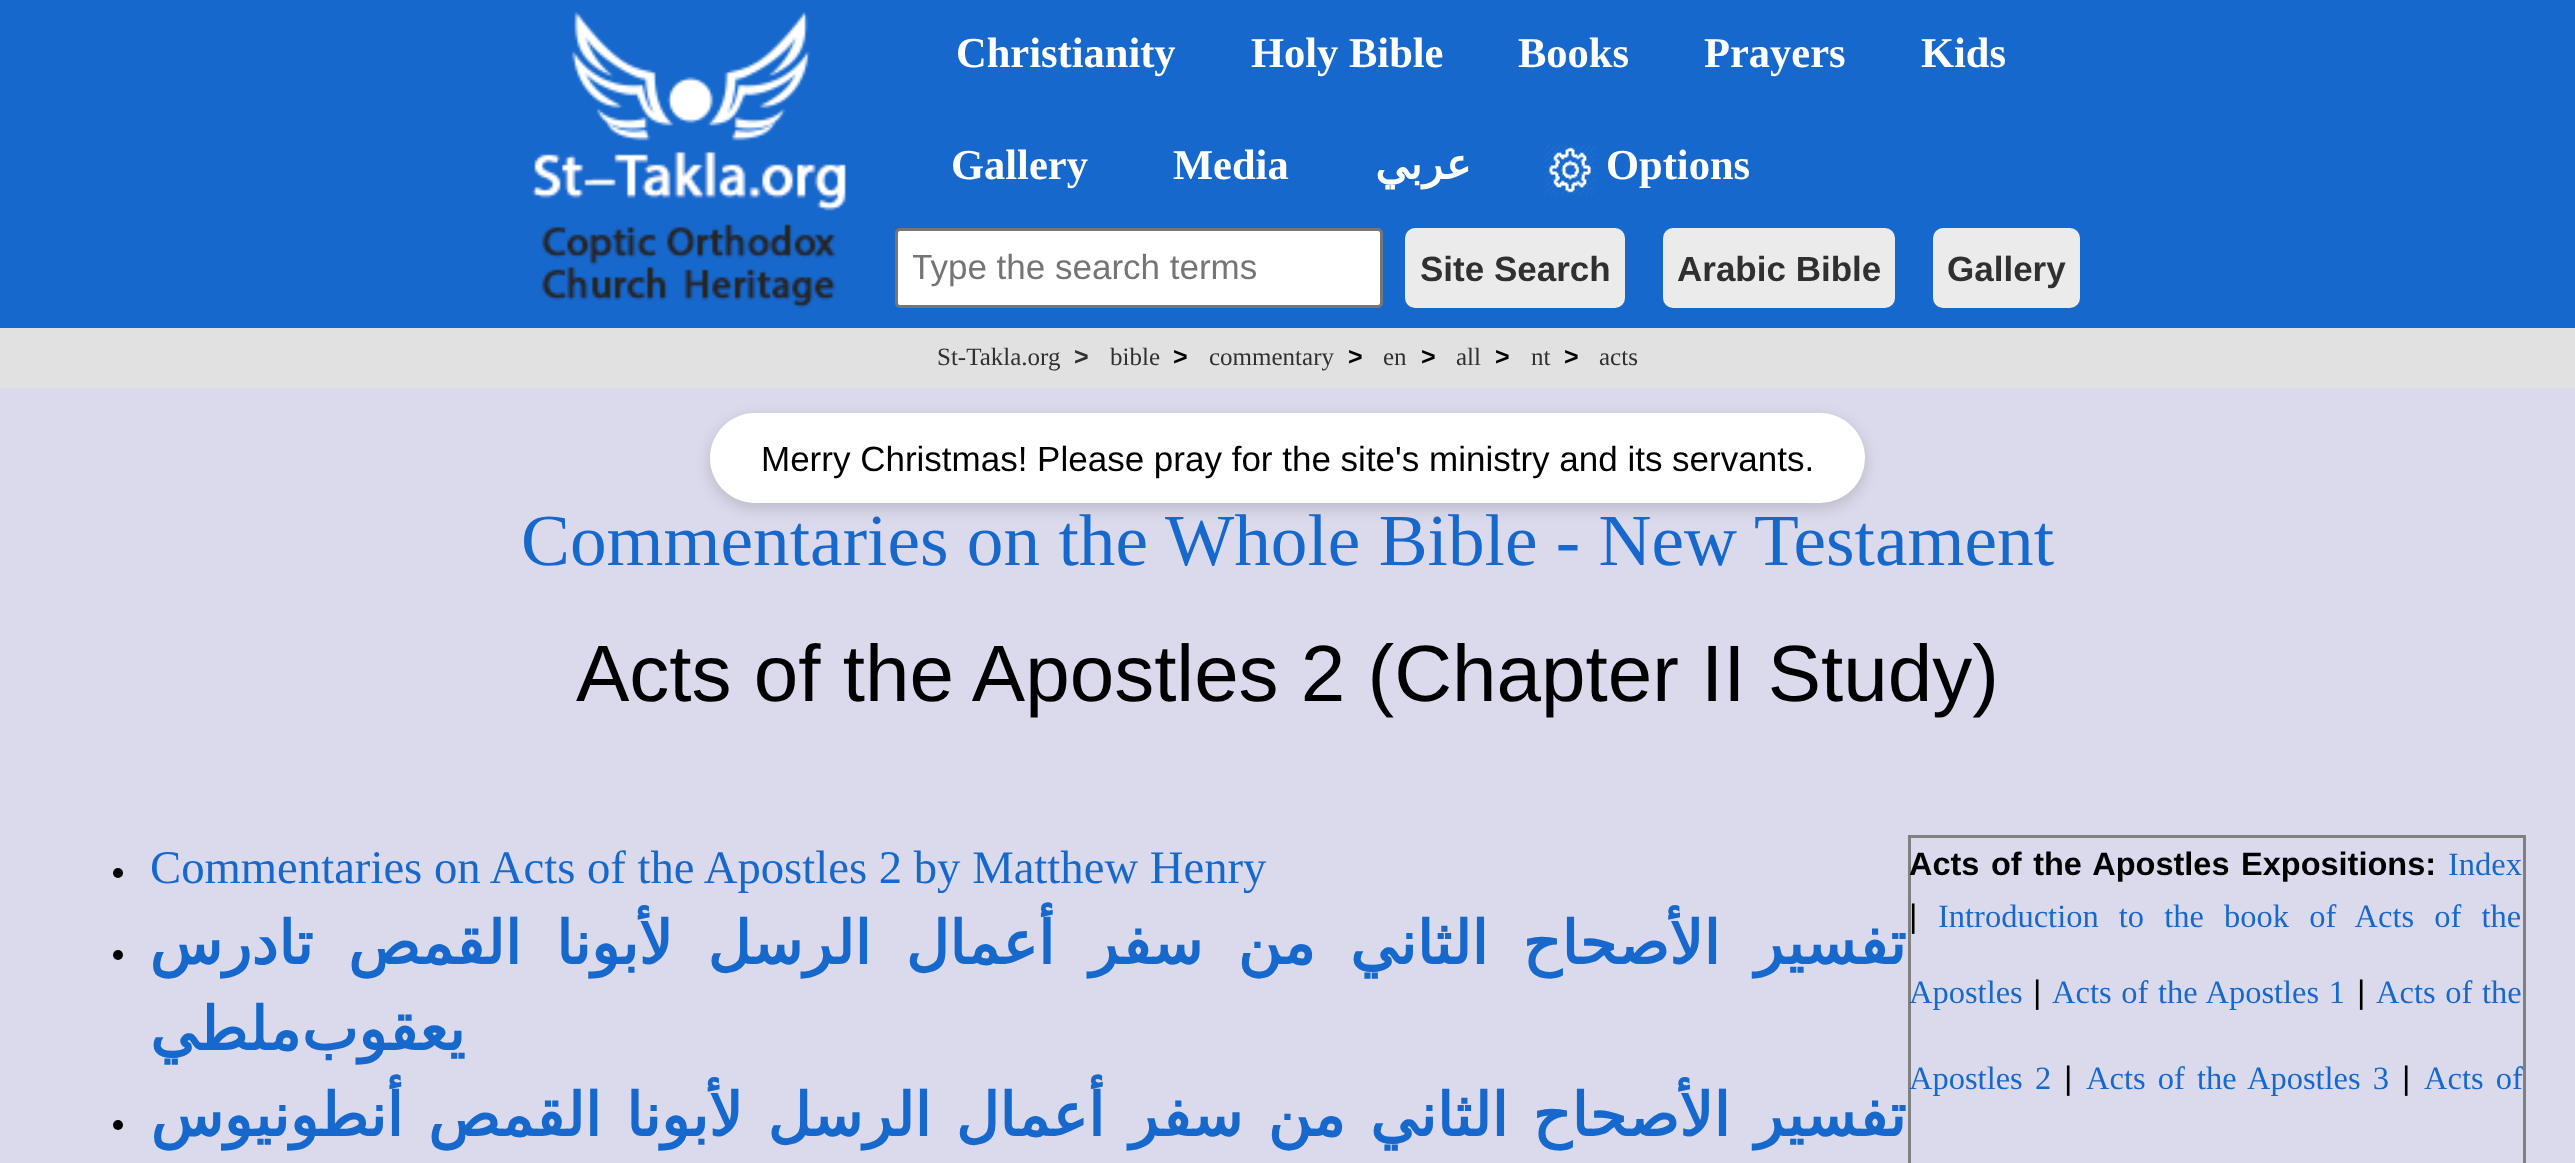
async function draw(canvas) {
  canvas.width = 2575
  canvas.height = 1163
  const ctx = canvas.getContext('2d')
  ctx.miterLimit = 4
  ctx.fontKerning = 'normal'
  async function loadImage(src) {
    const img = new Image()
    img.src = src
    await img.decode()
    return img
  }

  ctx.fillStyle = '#dbdaec'
  ctx.fillRect(0, 0, 2575, 1163)
  ctx.fillStyle = '#1668cd'
  ctx.fillRect(0, 0, 2575, 328)
  ctx.drawImage(await loadImage('image0.png'), 532, 12, 314, 297)
  ctx.font = 'bold 42.5px Liberation Serif'
  ctx.fillStyle = '#fff'
  ctx.fillText('Christianity', 956, 67)
  ctx.fillText('Holy Bible', 1251, 67)
  ctx.fillText('Books', 1518, 67)
  ctx.fillText('Prayers', 1704, 67)
  ctx.fillText('Kids', 1921, 67)
  ctx.fillText('Gallery', 951, 179)
  ctx.fillText('Media', 1173, 179)
  ctx.direction = 'rtl'
  ctx.font = 'bold 42.5px DejaVu Sans'
  ctx.fillText('عربي', 1471, 179)
  ctx.drawImage(await loadImage('image1.png'), 1545, 145, 50, 50)
  ctx.direction = 'ltr'
  ctx.font = 'bold 42.5px Liberation Serif'
  ctx.fillText('Options', 1606, 179)
  ctx.beginPath()
  ctx.roundRect(896.5, 229.5, 485, 77, 3.5)
  ctx.fill()
  ctx.strokeStyle = '#767676'
  ctx.lineWidth = 3
  ctx.stroke()
  ctx.save()
  ctx.beginPath()
  ctx.rect(913, 248, 452, 40)
  ctx.clip()
  ctx.font = '35px Liberation Sans'
  ctx.fillStyle = '#757575'
  ctx.fillText('Type the search terms', 911, 279)
  ctx.restore()
  ctx.fillStyle = '#ebebeb'
  ctx.beginPath()
  ctx.roundRect(1405, 228, 220, 80, 10)
  ctx.fill()
  ctx.font = 'bold 35px Liberation Sans'
  ctx.fillStyle = '#303030'
  ctx.fillText('Site Search', 1420, 281)
  ctx.fillStyle = '#ebebeb'
  ctx.beginPath()
  ctx.roundRect(1663, 228, 232, 80, 10)
  ctx.fill()
  ctx.fillStyle = '#303030'
  ctx.fillText('Arabic Bible', 1677, 281)
  ctx.fillStyle = '#ebebeb'
  ctx.beginPath()
  ctx.roundRect(1933, 228, 147, 80, 10)
  ctx.fill()
  ctx.fillStyle = '#303030'
  ctx.fillText('Gallery', 1947, 281)
  ctx.fillStyle = '#e1e1e1'
  ctx.fillRect(0, 328, 2575, 60)
  ctx.font = '25px Liberation Serif'
  ctx.fillStyle = '#303030'
  ctx.fillText('St-Takla.org', 937, 365)
  ctx.font = 'bold 25px Liberation Sans'
  ctx.fillText('>', 1074, 365)
  ctx.font = '25px Liberation Serif'
  ctx.fillText('bible', 1110, 365)
  ctx.font = 'bold 25px Liberation Sans'
  ctx.fillStyle = '#000'
  ctx.fillText('>', 1173, 365)
  ctx.font = '25px Liberation Serif'
  ctx.fillStyle = '#303030'
  ctx.fillText('commentary', 1209, 365)
  ctx.font = 'bold 25px Liberation Sans'
  ctx.fillStyle = '#000'
  ctx.fillText('>', 1348, 365)
  ctx.font = '25px Liberation Serif'
  ctx.fillStyle = '#303030'
  ctx.fillText('en', 1383, 365)
  ctx.font = 'bold 25px Liberation Sans'
  ctx.fillStyle = '#000'
  ctx.fillText('>', 1421, 365)
  ctx.font = '25px Liberation Serif'
  ctx.fillStyle = '#303030'
  ctx.fillText('all', 1456, 365)
  ctx.font = 'bold 25px Liberation Sans'
  ctx.fillStyle = '#000'
  ctx.fillText('>', 1495, 365)
  ctx.font = '25px Liberation Serif'
  ctx.fillStyle = '#303030'
  ctx.fillText('nt', 1531, 365)
  ctx.font = 'bold 25px Liberation Sans'
  ctx.fillStyle = '#000'
  ctx.fillText('>', 1564, 365)
  ctx.font = '25px Liberation Serif'
  ctx.fillStyle = '#303030'
  ctx.fillText('acts', 1599, 365)
  ctx.fillStyle = '#00000026'
  ctx.filter = 'blur(7.5px)'
  ctx.beginPath()
  ctx.roundRect(710, 418, 1155, 90, 45)
  ctx.fill()
  ctx.filter = 'none'
  ctx.fillStyle = '#fff'
  ctx.beginPath()
  ctx.roundRect(710, 413, 1155, 90, 45)
  ctx.fill()
  ctx.font = '35px Liberation Sans'
  ctx.fillStyle = '#000'
  ctx.fillText('Merry Christmas! Please pray for the site\'s ministry and its servants.', 761, 471)
  ctx.font = '73.3px Liberation Serif'
  ctx.fillStyle = '#1668cd'
  ctx.fillText('Commentaries on the Whole Bible - New Testament', 521, 565)
  ctx.font = '80px Liberation Sans'
  ctx.fillStyle = '#000'
  ctx.fillText('Acts of the Apostles 2 (Chapter II Study)', 576, 701)
  ctx.beginPath()
  ctx.arc(118, 873, 5, 0, 2 * Math.PI)
  ctx.fill()
  ctx.font = '46.7px Liberation Serif'
  ctx.fillStyle = '#1668cd'
  ctx.fillText('Commentaries on Acts of the Apostles 2 by Matthew Henry', 150, 883)
  ctx.fillStyle = '#000'
  ctx.beginPath()
  ctx.arc(118, 955, 5, 0, 2 * Math.PI)
  ctx.fill()
  ctx.wordSpacing = '15.5px'
  ctx.direction = 'rtl'
  ctx.font = 'bold 60px DejaVu Sans'
  ctx.fillStyle = '#1668cd'
  ctx.fillText('الأصحاح الثاني من سفر أعمال الرسل لأبونا القمص تادرس', 1720, 964)
  ctx.wordSpacing = '0px'
  ctx.fillText('تفسير', 1906, 964)
  ctx.fillText('ملطي', 301, 1050)
  ctx.fillText('يعقوب', 465, 1050)
  ctx.fillStyle = '#000'
  ctx.beginPath()
  ctx.arc(118, 1125, 5, 0, 2 * Math.PI)
  ctx.fill()
  ctx.fillStyle = '#1668cd'
  ctx.fillText('أنطونيوس', 403, 1136)
  ctx.wordSpacing = '5.5px'
  ctx.fillText('الأصحاح الثاني من سفر أعمال الرسل لأبونا القمص', 1730, 1136)
  ctx.wordSpacing = '0px'
  ctx.fillText('تفسير', 1906, 1136)
  ctx.fillStyle = '#808080'
  ctx.fillRect(1908, 835, 617, 3)
  ctx.fillRect(2523, 835, 3, 328)
  ctx.fillRect(1908, 835, 3, 328)
  ctx.wordSpacing = '2.5px'
  ctx.direction = 'ltr'
  ctx.font = 'bold 32.5px Liberation Sans'
  ctx.fillStyle = '#000'
  ctx.fillText('Acts of the Apostles Expositions:', 1909, 875)
  ctx.wordSpacing = '0px'
  ctx.font = '32.5px Liberation Serif'
  ctx.fillStyle = '#1668cd'
  ctx.fillText('Index', 2448, 875)
  ctx.font = '32.5px Liberation Sans'
  ctx.fillStyle = '#000'
  ctx.fillText('|', 1909, 927)
  ctx.wordSpacing = '12px'
  ctx.font = '32.5px Liberation Serif'
  ctx.fillStyle = '#1668cd'
  ctx.fillText('Introduction to the book of Acts of the', 1938, 927)
  ctx.wordSpacing = '0px'
  ctx.fillText('Apostles', 1909, 1003)
  ctx.font = '32.5px Liberation Sans'
  ctx.fillStyle = '#000'
  ctx.fillText('|', 2033, 1003)
  ctx.wordSpacing = '1.5px'
  ctx.font = '32.5px Liberation Serif'
  ctx.fillStyle = '#1668cd'
  ctx.fillText('Acts of the Apostles 1', 2052, 1003)
  ctx.wordSpacing = '0px'
  ctx.font = '32.5px Liberation Sans'
  ctx.fillStyle = '#000'
  ctx.fillText('|', 2357, 1003)
  ctx.wordSpacing = '1.5px'
  ctx.font = '32.5px Liberation Serif'
  ctx.fillStyle = '#1668cd'
  ctx.fillText('Acts of the', 2376, 1003)
  ctx.wordSpacing = '4px'
  ctx.fillText('Apostles 2', 1909, 1089)
  ctx.wordSpacing = '0px'
  ctx.font = '32.5px Liberation Sans'
  ctx.fillStyle = '#000'
  ctx.fillText('|', 2064, 1089)
  ctx.wordSpacing = '4px'
  ctx.font = '32.5px Liberation Serif'
  ctx.fillStyle = '#1668cd'
  ctx.fillText('Acts of the Apostles 3', 2086, 1089)
  ctx.wordSpacing = '0px'
  ctx.font = '32.5px Liberation Sans'
  ctx.fillStyle = '#000'
  ctx.fillText('|', 2402, 1089)
  ctx.wordSpacing = '4px'
  ctx.font = '32.5px Liberation Serif'
  ctx.fillStyle = '#1668cd'
  ctx.fillText('Acts of', 2424, 1089)
}

draw(document.querySelector('canvas'))
